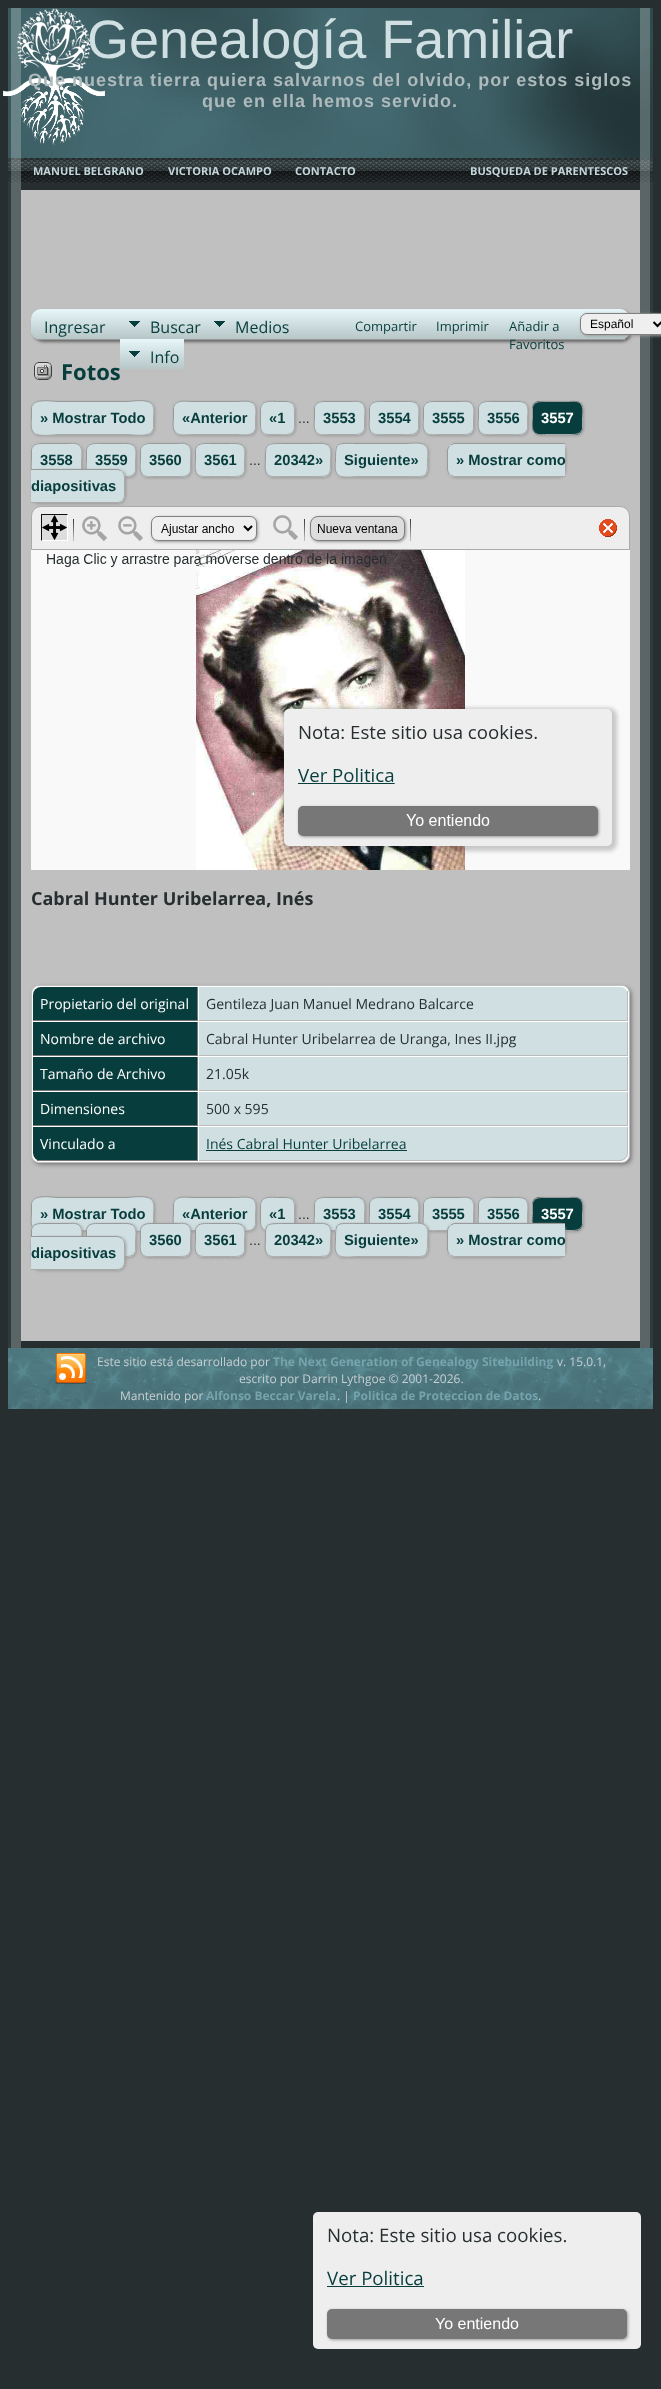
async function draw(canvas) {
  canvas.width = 661
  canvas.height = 2389
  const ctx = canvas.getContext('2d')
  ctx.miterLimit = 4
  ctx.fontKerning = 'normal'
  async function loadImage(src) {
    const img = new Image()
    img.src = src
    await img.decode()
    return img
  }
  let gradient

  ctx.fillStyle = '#272e30'
  ctx.fillRect(0, 0, 661, 2389)
  ctx.drawImage(await loadImage('image0.png'), 8, 8, 645, 150)
  ctx.drawImage(await loadImage('image1.png'), 8, 8, 13, 17)
  ctx.drawImage(await loadImage('image3.png'), 21, 8, 619, 150)
  ctx.drawImage(await loadImage('image14.png'), 8, 158, 645, 25)
  ctx.drawImage(await loadImage('image10.png'), 8, 25, 13, 1306)
  ctx.drawImage(await loadImage('image2.png'), 3, 8, 102, 138)
  ctx.font = '54px Liberation Sans'
  ctx.fillStyle = '#cfdfe2'
  ctx.fillText('Genealogía Familiar', 87, 58)
  ctx.letterSpacing = '1px'
  ctx.font = 'bold 18px Liberation Sans'
  ctx.fillStyle = '#aebabc'
  ctx.fillText('Que nuestra tierra quiera salvarnos del olvido, por estos siglos', 28, 86)
  ctx.fillText('que en ella hemos servido.', 202, 107)
  ctx.drawImage(await loadImage('image4.png'), 21, 158, 619, 25)
  ctx.letterSpacing = '0px'
  ctx.font = 'bold 11px Open Sans'
  ctx.fillStyle = '#c2d6db'
  ctx.fillText('MANUEL BELGRANO', 33, 175)
  ctx.fillText('VICTORIA OCAMPO', 168, 175)
  ctx.fillText('CONTACTO', 295, 175)
  ctx.fillText('BUSQUEDA DE PARENTESCOS', 470, 175)
  ctx.fillStyle = '#c0c0c0'
  ctx.fillRect(21, 190, 619, 1151)
  ctx.fillStyle = '#666'
  ctx.filter = 'blur(1.5px)'
  ctx.beginPath()
  ctx.roundRect(33, 311, 599, 31, 10)
  ctx.fill()
  ctx.filter = 'none'
  ctx.fillStyle = '#cfdfe2'
  ctx.beginPath()
  ctx.roundRect(31, 309, 599, 31, 10)
  ctx.fill()
  ctx.save()
  ctx.beginPath()
  ctx.roundRect(31, 309, 599, 31, 10)
  ctx.clip()
  gradient = ctx.createLinearGradient(331, 309, 331, 339)
  gradient.addColorStop(0, '#e7f7fa')
  gradient.addColorStop(1, '#b7c7c8')
  ctx.fillStyle = gradient
  ctx.beginPath()
  ctx.roundRect(31, 309, 599, 30, [10, 10, 0, 0])
  ctx.fill()
  ctx.restore()
  ctx.fillStyle = '#999'
  ctx.fillRect(36, 339, 589, 1)
  ctx.font = '16px Open Sans'
  ctx.fillStyle = '#073d3c'
  ctx.fillText('Ingresar', 44, 333)
  ctx.drawImage(await loadImage('image5.png'), 120, 309, 85, 30)
  ctx.fillText('Buscar', 150, 333)
  ctx.drawImage(await loadImage('image6.png'), 205, 309, 90, 30)
  ctx.fillText('Medios', 235, 333)
  ctx.drawImage(await loadImage('image7.png'), 120, 339, 64, 30)
  ctx.fillText('Info', 150, 363)
  ctx.font = '13px Open Sans'
  ctx.fillText('Compartir', 355, 331)
  ctx.fillText('Imprimir', 436, 331)
  ctx.fillText('Añadir a', 509, 331)
  ctx.fillText('Favoritos', 509, 349)
  ctx.drawImage(await loadImage('image11.png'), 640, 25, 13, 1306)
  ctx.fillStyle = '#999'
  ctx.filter = 'blur(1.5px)'
  ctx.beginPath()
  ctx.roundRect(581, 314, 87, 22, 7)
  ctx.fill()
  ctx.filter = 'none'
  ctx.fillStyle = '#efefef'
  ctx.beginPath()
  ctx.roundRect(580.5, 313.5, 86, 21, 6.5)
  ctx.fill()
  ctx.strokeStyle = '#808080'
  ctx.stroke()
  ctx.beginPath()
  ctx.moveTo(653.5, 322)
  ctx.lineTo(657.5, 326)
  ctx.lineTo(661.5, 322)
  ctx.strokeStyle = '#000'
  ctx.lineWidth = 2
  ctx.stroke()
  ctx.font = '12px Liberation Sans'
  ctx.fillStyle = '#000'
  ctx.fillText('Español', 590, 328)
  ctx.drawImage(await loadImage('image8.png'), 34, 362, 18, 18)
  ctx.font = 'bold 22px Open Sans'
  ctx.fillStyle = '#073d3c'
  ctx.fillText('Fotos', 61, 380)
  ctx.fillStyle = '#999'
  ctx.filter = 'blur(1.5px)'
  ctx.beginPath()
  ctx.roundRect(32, 402, 123, 34, 8)
  ctx.fill()
  ctx.filter = 'none'
  ctx.fillStyle = '#cfdfe2'
  ctx.beginPath()
  ctx.roundRect(31, 401, 123, 34, 8)
  ctx.fill()
  ctx.beginPath()
  ctx.moveTo(151.5, 403.5)
  ctx.bezierCurveTo(155, 407.5, 153.5, 413.5, 153.5, 418)
  ctx.lineTo(153.5, 428.5)
  ctx.bezierCurveTo(151.5, 438.5, 132.5, 434.5, 128, 434.5)
  ctx.lineTo(57, 434.5)
  ctx.bezierCurveTo(55, 434.5, 38.5, 437.5, 33.5, 432.5)
  ctx.strokeStyle = '#aaa'
  ctx.lineWidth = 1
  ctx.stroke()
  ctx.beginPath()
  ctx.moveTo(33.5, 432.5)
  ctx.bezierCurveTo(30, 428.5, 31.5, 422.5, 31.5, 418)
  ctx.lineTo(31.5, 407.5)
  ctx.bezierCurveTo(33.5, 397.5, 52.5, 401.5, 57, 401.5)
  ctx.lineTo(128, 401.5)
  ctx.bezierCurveTo(130, 401.5, 146.5, 398.5, 151.5, 403.5)
  ctx.strokeStyle = '#999'
  ctx.stroke()
  ctx.font = 'bold 14.75px Liberation Sans'
  ctx.fillStyle = '#073d3c'
  ctx.fillText('» Mostrar Todo', 40, 423)
  ctx.fillStyle = '#999'
  ctx.filter = 'blur(1.5px)'
  ctx.beginPath()
  ctx.roundRect(174, 402, 83, 34, 8)
  ctx.fill()
  ctx.filter = 'none'
  ctx.fillStyle = '#cfdfe2'
  ctx.beginPath()
  ctx.roundRect(173, 401, 83, 34, 8)
  ctx.fill()
  ctx.beginPath()
  ctx.moveTo(253.5, 403.5)
  ctx.bezierCurveTo(257, 407.5, 255.5, 413.5, 255.5, 418)
  ctx.lineTo(255.5, 428.5)
  ctx.bezierCurveTo(253.5, 437, 242.5, 434.5, 237, 434.5)
  ctx.lineTo(192, 434.5)
  ctx.bezierCurveTo(188, 434.5, 179.5, 436, 175.5, 432.5)
  ctx.strokeStyle = '#aaa'
  ctx.stroke()
  ctx.beginPath()
  ctx.moveTo(175.5, 432.5)
  ctx.bezierCurveTo(172, 428.5, 173.5, 422.5, 173.5, 418)
  ctx.lineTo(173.5, 407.5)
  ctx.bezierCurveTo(175.5, 399, 186.5, 401.5, 192, 401.5)
  ctx.lineTo(237, 401.5)
  ctx.bezierCurveTo(241, 401.5, 249.5, 400, 253.5, 403.5)
  ctx.strokeStyle = '#999'
  ctx.stroke()
  ctx.fillStyle = '#073d3c'
  ctx.fillText('«Anterior', 182, 423)
  ctx.fillStyle = '#999'
  ctx.filter = 'blur(1.5px)'
  ctx.beginPath()
  ctx.roundRect(261, 402, 35, 34, 8)
  ctx.fill()
  ctx.filter = 'none'
  ctx.fillStyle = '#cfdfe2'
  ctx.beginPath()
  ctx.roundRect(260, 401, 35, 34, 8)
  ctx.fill()
  ctx.beginPath()
  ctx.moveTo(292.5, 403.5)
  ctx.bezierCurveTo(294.5, 406, 294.5, 409, 294.5, 412)
  ctx.lineTo(294.5, 427.5)
  ctx.bezierCurveTo(293.5, 436.5, 283.5, 434.5, 277.5, 434.5)
  ctx.lineTo(271, 434.5)
  ctx.bezierCurveTo(268, 434.5, 265, 434.5, 262.5, 432.5)
  ctx.strokeStyle = '#aaa'
  ctx.stroke()
  ctx.beginPath()
  ctx.moveTo(262.5, 432.5)
  ctx.bezierCurveTo(260.5, 430, 260.5, 427, 260.5, 424)
  ctx.lineTo(260.5, 408.5)
  ctx.bezierCurveTo(261.5, 399.5, 271.5, 401.5, 277.5, 401.5)
  ctx.lineTo(284, 401.5)
  ctx.bezierCurveTo(287, 401.5, 290, 401.5, 292.5, 403.5)
  ctx.strokeStyle = '#999'
  ctx.stroke()
  ctx.fillStyle = '#073d3c'
  ctx.fillText('«1', 269, 423)
  ctx.font = '14px Liberation Sans'
  ctx.fillStyle = '#272e30'
  ctx.fillText('...', 298, 423)
  ctx.fillStyle = '#999'
  ctx.filter = 'blur(1.5px)'
  ctx.beginPath()
  ctx.roundRect(315, 402, 51, 34, 8)
  ctx.fill()
  ctx.filter = 'none'
  ctx.fillStyle = '#cfdfe2'
  ctx.beginPath()
  ctx.roundRect(314, 401, 51, 34, 8)
  ctx.fill()
  ctx.beginPath()
  ctx.moveTo(362.5, 403.5)
  ctx.bezierCurveTo(366, 407.5, 364.5, 413.5, 364.5, 418)
  ctx.lineTo(364.5, 428.5)
  ctx.bezierCurveTo(363, 435, 356.5, 434.5, 351, 434.5)
  ctx.lineTo(328, 434.5)
  ctx.bezierCurveTo(324, 434.5, 319.5, 435.5, 316.5, 432.5)
  ctx.strokeStyle = '#aaa'
  ctx.stroke()
  ctx.beginPath()
  ctx.moveTo(316.5, 432.5)
  ctx.bezierCurveTo(313, 428.5, 314.5, 422.5, 314.5, 418)
  ctx.lineTo(314.5, 407.5)
  ctx.bezierCurveTo(316, 401, 322.5, 401.5, 328, 401.5)
  ctx.lineTo(351, 401.5)
  ctx.bezierCurveTo(355, 401.5, 359.5, 400.5, 362.5, 403.5)
  ctx.strokeStyle = '#999'
  ctx.stroke()
  ctx.font = 'bold 14.75px Liberation Sans'
  ctx.fillStyle = '#073d3c'
  ctx.fillText('3553', 323, 423)
  ctx.fillStyle = '#999'
  ctx.filter = 'blur(1.5px)'
  ctx.beginPath()
  ctx.roundRect(370, 402, 50, 34, 8)
  ctx.fill()
  ctx.filter = 'none'
  ctx.fillStyle = '#cfdfe2'
  ctx.beginPath()
  ctx.roundRect(369, 401, 50, 34, 8)
  ctx.fill()
  ctx.beginPath()
  ctx.moveTo(416.5, 403.5)
  ctx.bezierCurveTo(420, 407.5, 418.5, 413.5, 418.5, 418)
  ctx.lineTo(418.5, 428.5)
  ctx.bezierCurveTo(417, 435, 410.5, 434.5, 405.5, 434.5)
  ctx.lineTo(382.5, 434.5)
  ctx.bezierCurveTo(379, 434.5, 374.5, 435, 371.5, 432.5)
  ctx.strokeStyle = '#aaa'
  ctx.stroke()
  ctx.beginPath()
  ctx.moveTo(371.5, 432.5)
  ctx.bezierCurveTo(368, 428.5, 369.5, 422.5, 369.5, 418)
  ctx.lineTo(369.5, 407.5)
  ctx.bezierCurveTo(371, 401, 377.5, 401.5, 382.5, 401.5)
  ctx.lineTo(405.5, 401.5)
  ctx.bezierCurveTo(409, 401.5, 413.5, 401, 416.5, 403.5)
  ctx.strokeStyle = '#999'
  ctx.stroke()
  ctx.fillStyle = '#073d3c'
  ctx.fillText('3554', 378, 423)
  ctx.fillStyle = '#999'
  ctx.filter = 'blur(1.5px)'
  ctx.beginPath()
  ctx.roundRect(424, 402, 51, 34, 8)
  ctx.fill()
  ctx.filter = 'none'
  ctx.fillStyle = '#cfdfe2'
  ctx.beginPath()
  ctx.roundRect(423, 401, 51, 34, 8)
  ctx.fill()
  ctx.beginPath()
  ctx.moveTo(471.5, 403.5)
  ctx.bezierCurveTo(475, 407.5, 473.5, 413.5, 473.5, 418)
  ctx.lineTo(473.5, 428.5)
  ctx.bezierCurveTo(472, 435, 465.5, 434.5, 460, 434.5)
  ctx.lineTo(437, 434.5)
  ctx.bezierCurveTo(433, 434.5, 428.5, 435.5, 425.5, 432.5)
  ctx.strokeStyle = '#aaa'
  ctx.stroke()
  ctx.beginPath()
  ctx.moveTo(425.5, 432.5)
  ctx.bezierCurveTo(422, 428.5, 423.5, 422.5, 423.5, 418)
  ctx.lineTo(423.5, 407.5)
  ctx.bezierCurveTo(425, 401, 431.5, 401.5, 437, 401.5)
  ctx.lineTo(460, 401.5)
  ctx.bezierCurveTo(464, 401.5, 468.5, 400.5, 471.5, 403.5)
  ctx.strokeStyle = '#999'
  ctx.stroke()
  ctx.fillStyle = '#073d3c'
  ctx.fillText('3555', 432, 423)
  ctx.fillStyle = '#999'
  ctx.filter = 'blur(1.5px)'
  ctx.beginPath()
  ctx.roundRect(479, 402, 50, 34, 8)
  ctx.fill()
  ctx.filter = 'none'
  ctx.fillStyle = '#cfdfe2'
  ctx.beginPath()
  ctx.roundRect(478, 401, 50, 34, 8)
  ctx.fill()
  ctx.beginPath()
  ctx.moveTo(525.5, 403.5)
  ctx.bezierCurveTo(529, 407.5, 527.5, 413.5, 527.5, 418)
  ctx.lineTo(527.5, 428.5)
  ctx.bezierCurveTo(526, 435, 519.5, 434.5, 514.5, 434.5)
  ctx.lineTo(491.5, 434.5)
  ctx.bezierCurveTo(488, 434.5, 483.5, 435, 480.5, 432.5)
  ctx.strokeStyle = '#aaa'
  ctx.stroke()
  ctx.beginPath()
  ctx.moveTo(480.5, 432.5)
  ctx.bezierCurveTo(477, 428.5, 478.5, 422.5, 478.5, 418)
  ctx.lineTo(478.5, 407.5)
  ctx.bezierCurveTo(480, 401, 486.5, 401.5, 491.5, 401.5)
  ctx.lineTo(514.5, 401.5)
  ctx.bezierCurveTo(518, 401.5, 522.5, 401, 525.5, 403.5)
  ctx.strokeStyle = '#999'
  ctx.stroke()
  ctx.fillStyle = '#073d3c'
  ctx.fillText('3556', 487, 423)
  ctx.fillStyle = '#999'
  ctx.filter = 'blur(1.5px)'
  ctx.beginPath()
  ctx.roundRect(533, 402, 51, 34, 8)
  ctx.fill()
  ctx.filter = 'none'
  ctx.fillStyle = '#073d3c'
  ctx.beginPath()
  ctx.roundRect(532, 401, 51, 34, 8)
  ctx.fill()
  ctx.beginPath()
  ctx.moveTo(580.5, 403.5)
  ctx.bezierCurveTo(584, 407.5, 582.5, 413.5, 582.5, 418)
  ctx.lineTo(582.5, 428.5)
  ctx.bezierCurveTo(581, 435, 574.5, 434.5, 569, 434.5)
  ctx.lineTo(546, 434.5)
  ctx.bezierCurveTo(542, 434.5, 537.5, 435.5, 534.5, 432.5)
  ctx.strokeStyle = '#aaa'
  ctx.stroke()
  ctx.beginPath()
  ctx.moveTo(534.5, 432.5)
  ctx.bezierCurveTo(531, 428.5, 532.5, 422.5, 532.5, 418)
  ctx.lineTo(532.5, 407.5)
  ctx.bezierCurveTo(534, 401, 540.5, 401.5, 546, 401.5)
  ctx.lineTo(569, 401.5)
  ctx.bezierCurveTo(573, 401.5, 577.5, 400.5, 580.5, 403.5)
  ctx.strokeStyle = '#999'
  ctx.stroke()
  ctx.fillStyle = '#fff'
  ctx.fillText('3557', 541, 423)
  ctx.fillStyle = '#999'
  ctx.filter = 'blur(1.5px)'
  ctx.beginPath()
  ctx.roundRect(32, 444, 51, 34, 8)
  ctx.fill()
  ctx.filter = 'none'
  ctx.fillStyle = '#cfdfe2'
  ctx.beginPath()
  ctx.roundRect(31, 443, 51, 34, 8)
  ctx.fill()
  ctx.beginPath()
  ctx.moveTo(79.5, 445.5)
  ctx.bezierCurveTo(83, 449.5, 81.5, 455.5, 81.5, 460)
  ctx.lineTo(81.5, 470.5)
  ctx.bezierCurveTo(80, 477, 73.5, 476.5, 68, 476.5)
  ctx.lineTo(45, 476.5)
  ctx.bezierCurveTo(41, 476.5, 36.5, 477.5, 33.5, 474.5)
  ctx.strokeStyle = '#aaa'
  ctx.stroke()
  ctx.beginPath()
  ctx.moveTo(33.5, 474.5)
  ctx.bezierCurveTo(30, 470.5, 31.5, 464.5, 31.5, 460)
  ctx.lineTo(31.5, 449.5)
  ctx.bezierCurveTo(33, 443, 39.5, 443.5, 45, 443.5)
  ctx.lineTo(68, 443.5)
  ctx.bezierCurveTo(72, 443.5, 76.5, 442.5, 79.5, 445.5)
  ctx.strokeStyle = '#999'
  ctx.stroke()
  ctx.fillStyle = '#073d3c'
  ctx.fillText('3558', 40, 465)
  ctx.fillStyle = '#999'
  ctx.filter = 'blur(1.5px)'
  ctx.beginPath()
  ctx.roundRect(87, 444, 50, 34, 8)
  ctx.fill()
  ctx.filter = 'none'
  ctx.fillStyle = '#cfdfe2'
  ctx.beginPath()
  ctx.roundRect(86, 443, 50, 34, 8)
  ctx.fill()
  ctx.beginPath()
  ctx.moveTo(133.5, 445.5)
  ctx.bezierCurveTo(137, 449.5, 135.5, 455.5, 135.5, 460)
  ctx.lineTo(135.5, 470.5)
  ctx.bezierCurveTo(134, 477, 127.5, 476.5, 122.5, 476.5)
  ctx.lineTo(99.5, 476.5)
  ctx.bezierCurveTo(96, 476.5, 91.5, 477, 88.5, 474.5)
  ctx.strokeStyle = '#aaa'
  ctx.stroke()
  ctx.beginPath()
  ctx.moveTo(88.5, 474.5)
  ctx.bezierCurveTo(85, 470.5, 86.5, 464.5, 86.5, 460)
  ctx.lineTo(86.5, 449.5)
  ctx.bezierCurveTo(88, 443, 94.5, 443.5, 99.5, 443.5)
  ctx.lineTo(122.5, 443.5)
  ctx.bezierCurveTo(126, 443.5, 130.5, 443, 133.5, 445.5)
  ctx.strokeStyle = '#999'
  ctx.stroke()
  ctx.fillStyle = '#073d3c'
  ctx.fillText('3559', 95, 465)
  ctx.fillStyle = '#999'
  ctx.filter = 'blur(1.5px)'
  ctx.beginPath()
  ctx.roundRect(141, 444, 51, 34, 8)
  ctx.fill()
  ctx.filter = 'none'
  ctx.fillStyle = '#cfdfe2'
  ctx.beginPath()
  ctx.roundRect(140, 443, 51, 34, 8)
  ctx.fill()
  ctx.beginPath()
  ctx.moveTo(188.5, 445.5)
  ctx.bezierCurveTo(192, 449.5, 190.5, 455.5, 190.5, 460)
  ctx.lineTo(190.5, 470.5)
  ctx.bezierCurveTo(189, 477, 182.5, 476.5, 177, 476.5)
  ctx.lineTo(154, 476.5)
  ctx.bezierCurveTo(150, 476.5, 145.5, 477.5, 142.5, 474.5)
  ctx.strokeStyle = '#aaa'
  ctx.stroke()
  ctx.beginPath()
  ctx.moveTo(142.5, 474.5)
  ctx.bezierCurveTo(139, 470.5, 140.5, 464.5, 140.5, 460)
  ctx.lineTo(140.5, 449.5)
  ctx.bezierCurveTo(142, 443, 148.5, 443.5, 154, 443.5)
  ctx.lineTo(177, 443.5)
  ctx.bezierCurveTo(181, 443.5, 185.5, 442.5, 188.5, 445.5)
  ctx.strokeStyle = '#999'
  ctx.stroke()
  ctx.fillStyle = '#073d3c'
  ctx.fillText('3560', 149, 465)
  ctx.fillStyle = '#999'
  ctx.filter = 'blur(1.5px)'
  ctx.beginPath()
  ctx.roundRect(196, 444, 50, 34, 8)
  ctx.fill()
  ctx.filter = 'none'
  ctx.fillStyle = '#cfdfe2'
  ctx.beginPath()
  ctx.roundRect(195, 443, 50, 34, 8)
  ctx.fill()
  ctx.beginPath()
  ctx.moveTo(242.5, 445.5)
  ctx.bezierCurveTo(246, 449.5, 244.5, 455.5, 244.5, 460)
  ctx.lineTo(244.5, 470.5)
  ctx.bezierCurveTo(243, 477, 236.5, 476.5, 231.5, 476.5)
  ctx.lineTo(208.5, 476.5)
  ctx.bezierCurveTo(205, 476.5, 200.5, 477, 197.5, 474.5)
  ctx.strokeStyle = '#aaa'
  ctx.stroke()
  ctx.beginPath()
  ctx.moveTo(197.5, 474.5)
  ctx.bezierCurveTo(194, 470.5, 195.5, 464.5, 195.5, 460)
  ctx.lineTo(195.5, 449.5)
  ctx.bezierCurveTo(197, 443, 203.5, 443.5, 208.5, 443.5)
  ctx.lineTo(231.5, 443.5)
  ctx.bezierCurveTo(235, 443.5, 239.5, 443, 242.5, 445.5)
  ctx.strokeStyle = '#999'
  ctx.stroke()
  ctx.fillStyle = '#073d3c'
  ctx.fillText('3561', 204, 465)
  ctx.font = '14px Liberation Sans'
  ctx.fillStyle = '#272e30'
  ctx.fillText('...', 249, 465)
  ctx.fillStyle = '#999'
  ctx.filter = 'blur(1.5px)'
  ctx.beginPath()
  ctx.roundRect(266, 444, 66, 34, 8)
  ctx.fill()
  ctx.filter = 'none'
  ctx.fillStyle = '#cfdfe2'
  ctx.beginPath()
  ctx.roundRect(265, 443, 66, 34, 8)
  ctx.fill()
  ctx.beginPath()
  ctx.moveTo(328.5, 445.5)
  ctx.bezierCurveTo(332, 449.5, 330.5, 455.5, 330.5, 460)
  ctx.bezierCurveTo(330.5, 475.5, 331, 476.5, 314.5, 476.5)
  ctx.lineTo(281.5, 476.5)
  ctx.bezierCurveTo(277, 476.5, 271, 477.5, 267.5, 474.5)
  ctx.strokeStyle = '#aaa'
  ctx.stroke()
  ctx.beginPath()
  ctx.moveTo(267.5, 474.5)
  ctx.bezierCurveTo(264, 470.5, 265.5, 464.5, 265.5, 460)
  ctx.bezierCurveTo(265.5, 444.5, 265, 443.5, 281.5, 443.5)
  ctx.lineTo(314.5, 443.5)
  ctx.bezierCurveTo(319, 443.5, 325, 442.5, 328.5, 445.5)
  ctx.strokeStyle = '#999'
  ctx.stroke()
  ctx.font = 'bold 14.75px Liberation Sans'
  ctx.fillStyle = '#073d3c'
  ctx.fillText('20342»', 274, 465)
  ctx.fillStyle = '#999'
  ctx.filter = 'blur(1.5px)'
  ctx.beginPath()
  ctx.roundRect(336, 444, 93, 34, 8)
  ctx.fill()
  ctx.filter = 'none'
  ctx.fillStyle = '#cfdfe2'
  ctx.beginPath()
  ctx.roundRect(335, 443, 93, 34, 8)
  ctx.fill()
  ctx.beginPath()
  ctx.moveTo(425.5, 445.5)
  ctx.bezierCurveTo(429, 449.5, 427.5, 455.5, 427.5, 460)
  ctx.bezierCurveTo(427.5, 478.5, 426.5, 476.5, 407, 476.5)
  ctx.lineTo(356, 476.5)
  ctx.bezierCurveTo(352, 476.5, 342, 478.5, 337.5, 474.5)
  ctx.strokeStyle = '#aaa'
  ctx.stroke()
  ctx.beginPath()
  ctx.moveTo(337.5, 474.5)
  ctx.bezierCurveTo(334, 470.5, 335.5, 464.5, 335.5, 460)
  ctx.bezierCurveTo(335.5, 441.5, 336.5, 443.5, 356, 443.5)
  ctx.lineTo(407, 443.5)
  ctx.bezierCurveTo(411, 443.5, 421, 441.5, 425.5, 445.5)
  ctx.strokeStyle = '#999'
  ctx.stroke()
  ctx.fillStyle = '#073d3c'
  ctx.fillText('Siguiente»', 344, 465)
  ctx.fillStyle = '#999'
  ctx.filter = 'blur(1.5px)'
  ctx.beginPath()
  ctx.roundRect(448, 444, 118, 34, 8)
  ctx.fill()
  ctx.filter = 'none'
  ctx.fillStyle = '#cfdfe2'
  ctx.beginPath()
  ctx.roundRect(447, 443, 118, 34, [8, 0, 0, 8])
  ctx.fill()
  ctx.fillStyle = '#073d3c'
  ctx.fillText('» Mostrar como', 456, 465)
  ctx.fillStyle = '#999'
  ctx.beginPath()
  ctx.moveTo(455, 443)
  ctx.bezierCurveTo(453, 443, 451, 444, 450, 446)
  ctx.lineTo(454, 444)
  ctx.lineTo(565, 444)
  ctx.lineTo(565, 443)
  ctx.closePath()
  ctx.fill()
  ctx.fillStyle = '#aaa'
  ctx.beginPath()
  ctx.moveTo(565, 477)
  ctx.lineTo(565, 476)
  ctx.lineTo(454, 476)
  ctx.lineTo(450, 474)
  ctx.bezierCurveTo(451, 476, 453, 477, 455, 477)
  ctx.closePath()
  ctx.fill()
  ctx.fillStyle = '#999'
  ctx.beginPath()
  ctx.moveTo(447, 451)
  ctx.lineTo(447, 469)
  ctx.bezierCurveTo(447, 471, 448, 473, 449.5, 474.5)
  ctx.lineTo(450, 474)
  ctx.bezierCurveTo(449, 473, 448, 471, 448, 469)
  ctx.lineTo(448, 451)
  ctx.bezierCurveTo(448, 449, 449, 447, 450, 446)
  ctx.lineTo(449.5, 445.5)
  ctx.bezierCurveTo(448, 447, 447, 449, 447, 451)
  ctx.closePath()
  ctx.fill()
  ctx.filter = 'blur(1.5px)'
  ctx.beginPath()
  ctx.roundRect(32, 470, 94, 34, 8)
  ctx.fill()
  ctx.filter = 'none'
  ctx.fillStyle = '#cfdfe2'
  ctx.beginPath()
  ctx.roundRect(31, 469, 94, 34, [0, 8, 8, 0])
  ctx.fill()
  ctx.fillStyle = '#073d3c'
  ctx.fillText('diapositivas', 31, 491)
  ctx.fillStyle = '#999'
  ctx.beginPath()
  ctx.moveTo(31, 469)
  ctx.lineTo(31, 470)
  ctx.lineTo(117, 470)
  ctx.bezierCurveTo(119, 470, 121, 471, 122, 472)
  ctx.bezierCurveTo(121, 470, 119, 469, 117, 469)
  ctx.closePath()
  ctx.fill()
  ctx.fillStyle = '#aaa'
  ctx.beginPath()
  ctx.moveTo(122, 500)
  ctx.bezierCurveTo(123, 499, 124, 497, 124, 495)
  ctx.lineTo(124, 477)
  ctx.bezierCurveTo(124, 475, 123, 473, 122, 472)
  ctx.lineTo(122.5, 471.5)
  ctx.bezierCurveTo(124, 473, 125, 475, 125, 477)
  ctx.lineTo(125, 495)
  ctx.bezierCurveTo(125, 497, 124, 499, 122.5, 500.5)
  ctx.closePath()
  ctx.fill()
  ctx.beginPath()
  ctx.moveTo(31, 502)
  ctx.lineTo(31, 503)
  ctx.lineTo(117, 503)
  ctx.bezierCurveTo(119, 503, 121, 502, 122, 500)
  ctx.bezierCurveTo(121, 501, 119, 502, 117, 502)
  ctx.closePath()
  ctx.fill()
  ctx.drawImage(await loadImage('image9.png'), 31, 506, 599, 364)
  ctx.font = 'bold 18px Open Sans'
  ctx.fillStyle = '#272e30'
  ctx.fillText('Cabral Hunter Uribelarrea, Inés', 31, 905)
  ctx.fillStyle = '#666'
  ctx.filter = 'blur(2.5px)'
  ctx.beginPath()
  ctx.roundRect(34, 988, 597, 176, 7)
  ctx.fill()
  ctx.filter = 'none'
  ctx.fillStyle = '#fff'
  ctx.beginPath()
  ctx.roundRect(31.5, 985.5, 598, 177, 7.5)
  ctx.fill()
  ctx.strokeStyle = '#c0c0c0'
  ctx.stroke()
  ctx.fillStyle = '#073d3c'
  ctx.beginPath()
  ctx.roundRect(33, 987, 165, 34, [8, 0, 0, 0])
  ctx.fill()
  ctx.fillStyle = '#777'
  ctx.fillRect(197, 987, 1, 34)
  ctx.fillRect(33, 1020, 165, 1)
  ctx.font = '14px Open Sans'
  ctx.fillStyle = '#fff'
  ctx.fillText('Propietario del original', 40, 1009)
  ctx.fillStyle = '#cfdfe2'
  ctx.beginPath()
  ctx.roundRect(199, 987, 429, 34, [0, 8, 0, 0])
  ctx.fill()
  ctx.fillStyle = '#bbb'
  ctx.fillRect(627, 991, 1, 30)
  ctx.fillRect(199, 1020, 429, 1)
  ctx.fillStyle = '#272e30'
  ctx.fillText('Gentileza Juan Manuel Medrano Balcarce', 206, 1009)
  ctx.fillStyle = '#073d3c'
  ctx.fillRect(33, 1022, 164, 33)
  ctx.fillStyle = '#777'
  ctx.fillRect(197, 1022, 1, 34)
  ctx.fillRect(33, 1055, 165, 1)
  ctx.fillStyle = '#fff'
  ctx.fillText('Nombre de archivo', 40, 1044)
  ctx.fillStyle = '#cfdfe2'
  ctx.fillRect(199, 1022, 428, 33)
  ctx.fillStyle = '#bbb'
  ctx.fillRect(627, 1022, 1, 34)
  ctx.fillRect(199, 1055, 429, 1)
  ctx.fillStyle = '#272e30'
  ctx.fillText('Cabral Hunter Uribelarrea de Uranga, Ines II.jpg', 206, 1044)
  ctx.fillStyle = '#073d3c'
  ctx.fillRect(33, 1057, 164, 33)
  ctx.fillStyle = '#777'
  ctx.fillRect(197, 1057, 1, 34)
  ctx.fillRect(33, 1090, 165, 1)
  ctx.fillStyle = '#fff'
  ctx.fillText('Tamaño de Archivo', 40, 1079)
  ctx.fillStyle = '#cfdfe2'
  ctx.fillRect(199, 1057, 428, 33)
  ctx.fillStyle = '#bbb'
  ctx.fillRect(627, 1057, 1, 34)
  ctx.fillRect(199, 1090, 429, 1)
  ctx.fillStyle = '#272e30'
  ctx.fillText('21.05k', 206, 1079)
  ctx.fillStyle = '#073d3c'
  ctx.fillRect(33, 1092, 164, 33)
  ctx.fillStyle = '#777'
  ctx.fillRect(197, 1092, 1, 34)
  ctx.fillRect(33, 1125, 165, 1)
  ctx.fillStyle = '#fff'
  ctx.fillText('Dimensiones', 40, 1114)
  ctx.fillStyle = '#cfdfe2'
  ctx.fillRect(199, 1092, 428, 33)
  ctx.fillStyle = '#bbb'
  ctx.fillRect(627, 1092, 1, 34)
  ctx.fillRect(199, 1125, 429, 1)
  ctx.fillStyle = '#272e30'
  ctx.fillText('500 x 595', 206, 1114)
  ctx.fillStyle = '#073d3c'
  ctx.beginPath()
  ctx.roundRect(33, 1127, 165, 34, [0, 0, 0, 8])
  ctx.fill()
  ctx.fillStyle = '#777'
  ctx.fillRect(197, 1127, 1, 34)
  ctx.fillRect(37, 1160, 161, 1)
  ctx.fillStyle = '#fff'
  ctx.fillText('Vinculado a', 40, 1149)
  ctx.fillStyle = '#cfdfe2'
  ctx.beginPath()
  ctx.roundRect(199, 1127, 429, 34, [0, 0, 8, 0])
  ctx.fill()
  ctx.fillStyle = '#bbb'
  ctx.beginPath()
  ctx.moveTo(199, 1127)
  ctx.lineTo(628, 1127)
  ctx.lineTo(628, 1153)
  ctx.bezierCurveTo(628, 1157, 624, 1161, 620, 1161)
  ctx.lineTo(199, 1161)
  ctx.closePath()
  ctx.moveTo(199, 1127)
  ctx.lineTo(627, 1127)
  ctx.lineTo(627, 1153)
  ctx.bezierCurveTo(627, 1157, 624, 1160, 620, 1160)
  ctx.lineTo(199, 1160)
  ctx.closePath()
  ctx.fill('evenodd')
  ctx.fillStyle = '#073d3c'
  ctx.fillText('Inés Cabral Hunter Uribelarrea', 206, 1149)
  ctx.fillRect(206, 1150, 201, 1)
  ctx.fillStyle = '#999'
  ctx.filter = 'blur(1.5px)'
  ctx.beginPath()
  ctx.roundRect(32, 1198, 123, 34, 8)
  ctx.fill()
  ctx.filter = 'none'
  ctx.fillStyle = '#cfdfe2'
  ctx.beginPath()
  ctx.roundRect(31, 1197, 123, 34, 8)
  ctx.fill()
  ctx.beginPath()
  ctx.moveTo(151.5, 1199.5)
  ctx.bezierCurveTo(155, 1203.5, 153.5, 1209.5, 153.5, 1214)
  ctx.lineTo(153.5, 1224.5)
  ctx.bezierCurveTo(151.5, 1234.5, 132.5, 1230.5, 128, 1230.5)
  ctx.lineTo(57, 1230.5)
  ctx.bezierCurveTo(55, 1230.5, 38.5, 1233.5, 33.5, 1228.5)
  ctx.strokeStyle = '#aaa'
  ctx.stroke()
  ctx.beginPath()
  ctx.moveTo(33.5, 1228.5)
  ctx.bezierCurveTo(30, 1224.5, 31.5, 1218.5, 31.5, 1214)
  ctx.lineTo(31.5, 1203.5)
  ctx.bezierCurveTo(33.5, 1193.5, 52.5, 1197.5, 57, 1197.5)
  ctx.lineTo(128, 1197.5)
  ctx.bezierCurveTo(130, 1197.5, 146.5, 1194.5, 151.5, 1199.5)
  ctx.strokeStyle = '#999'
  ctx.stroke()
  ctx.font = 'bold 14.75px Liberation Sans'
  ctx.fillStyle = '#073d3c'
  ctx.fillText('» Mostrar Todo', 40, 1219)
  ctx.fillStyle = '#999'
  ctx.filter = 'blur(1.5px)'
  ctx.beginPath()
  ctx.roundRect(174, 1198, 83, 34, 8)
  ctx.fill()
  ctx.filter = 'none'
  ctx.fillStyle = '#cfdfe2'
  ctx.beginPath()
  ctx.roundRect(173, 1197, 83, 34, 8)
  ctx.fill()
  ctx.beginPath()
  ctx.moveTo(253.5, 1199.5)
  ctx.bezierCurveTo(257, 1203.5, 255.5, 1209.5, 255.5, 1214)
  ctx.lineTo(255.5, 1224.5)
  ctx.bezierCurveTo(253.5, 1233, 242.5, 1230.5, 237, 1230.5)
  ctx.lineTo(192, 1230.5)
  ctx.bezierCurveTo(188, 1230.5, 179.5, 1232, 175.5, 1228.5)
  ctx.strokeStyle = '#aaa'
  ctx.stroke()
  ctx.beginPath()
  ctx.moveTo(175.5, 1228.5)
  ctx.bezierCurveTo(172, 1224.5, 173.5, 1218.5, 173.5, 1214)
  ctx.lineTo(173.5, 1203.5)
  ctx.bezierCurveTo(175.5, 1195, 186.5, 1197.5, 192, 1197.5)
  ctx.lineTo(237, 1197.5)
  ctx.bezierCurveTo(241, 1197.5, 249.5, 1196, 253.5, 1199.5)
  ctx.strokeStyle = '#999'
  ctx.stroke()
  ctx.fillStyle = '#073d3c'
  ctx.fillText('«Anterior', 182, 1219)
  ctx.fillStyle = '#999'
  ctx.filter = 'blur(1.5px)'
  ctx.beginPath()
  ctx.roundRect(261, 1198, 35, 34, 8)
  ctx.fill()
  ctx.filter = 'none'
  ctx.fillStyle = '#cfdfe2'
  ctx.beginPath()
  ctx.roundRect(260, 1197, 35, 34, 8)
  ctx.fill()
  ctx.beginPath()
  ctx.moveTo(292.5, 1199.5)
  ctx.bezierCurveTo(294.5, 1202, 294.5, 1205, 294.5, 1208)
  ctx.lineTo(294.5, 1223.5)
  ctx.bezierCurveTo(293.5, 1232.5, 283.5, 1230.5, 277.5, 1230.5)
  ctx.lineTo(271, 1230.5)
  ctx.bezierCurveTo(268, 1230.5, 265, 1230.5, 262.5, 1228.5)
  ctx.strokeStyle = '#aaa'
  ctx.stroke()
  ctx.beginPath()
  ctx.moveTo(262.5, 1228.5)
  ctx.bezierCurveTo(260.5, 1226, 260.5, 1223, 260.5, 1220)
  ctx.lineTo(260.5, 1204.5)
  ctx.bezierCurveTo(261.5, 1195.5, 271.5, 1197.5, 277.5, 1197.5)
  ctx.lineTo(284, 1197.5)
  ctx.bezierCurveTo(287, 1197.5, 290, 1197.5, 292.5, 1199.5)
  ctx.strokeStyle = '#999'
  ctx.stroke()
  ctx.fillStyle = '#073d3c'
  ctx.fillText('«1', 269, 1219)
  ctx.font = '14px Liberation Sans'
  ctx.fillStyle = '#272e30'
  ctx.fillText('...', 298, 1219)
  ctx.fillStyle = '#999'
  ctx.filter = 'blur(1.5px)'
  ctx.beginPath()
  ctx.roundRect(315, 1198, 51, 34, 8)
  ctx.fill()
  ctx.filter = 'none'
  ctx.fillStyle = '#cfdfe2'
  ctx.beginPath()
  ctx.roundRect(314, 1197, 51, 34, 8)
  ctx.fill()
  ctx.beginPath()
  ctx.moveTo(362.5, 1199.5)
  ctx.bezierCurveTo(366, 1203.5, 364.5, 1209.5, 364.5, 1214)
  ctx.lineTo(364.5, 1224.5)
  ctx.bezierCurveTo(363, 1231, 356.5, 1230.5, 351, 1230.5)
  ctx.lineTo(328, 1230.5)
  ctx.bezierCurveTo(324, 1230.5, 319.5, 1231.5, 316.5, 1228.5)
  ctx.strokeStyle = '#aaa'
  ctx.stroke()
  ctx.beginPath()
  ctx.moveTo(316.5, 1228.5)
  ctx.bezierCurveTo(313, 1224.5, 314.5, 1218.5, 314.5, 1214)
  ctx.lineTo(314.5, 1203.5)
  ctx.bezierCurveTo(316, 1197, 322.5, 1197.5, 328, 1197.5)
  ctx.lineTo(351, 1197.5)
  ctx.bezierCurveTo(355, 1197.5, 359.5, 1196.5, 362.5, 1199.5)
  ctx.strokeStyle = '#999'
  ctx.stroke()
  ctx.font = 'bold 14.75px Liberation Sans'
  ctx.fillStyle = '#073d3c'
  ctx.fillText('3553', 323, 1219)
  ctx.fillStyle = '#999'
  ctx.filter = 'blur(1.5px)'
  ctx.beginPath()
  ctx.roundRect(370, 1198, 50, 34, 8)
  ctx.fill()
  ctx.filter = 'none'
  ctx.fillStyle = '#cfdfe2'
  ctx.beginPath()
  ctx.roundRect(369, 1197, 50, 34, 8)
  ctx.fill()
  ctx.beginPath()
  ctx.moveTo(416.5, 1199.5)
  ctx.bezierCurveTo(420, 1203.5, 418.5, 1209.5, 418.5, 1214)
  ctx.lineTo(418.5, 1224.5)
  ctx.bezierCurveTo(417, 1231, 410.5, 1230.5, 405.5, 1230.5)
  ctx.lineTo(382.5, 1230.5)
  ctx.bezierCurveTo(379, 1230.5, 374.5, 1231, 371.5, 1228.5)
  ctx.strokeStyle = '#aaa'
  ctx.stroke()
  ctx.beginPath()
  ctx.moveTo(371.5, 1228.5)
  ctx.bezierCurveTo(368, 1224.5, 369.5, 1218.5, 369.5, 1214)
  ctx.lineTo(369.5, 1203.5)
  ctx.bezierCurveTo(371, 1197, 377.5, 1197.5, 382.5, 1197.5)
  ctx.lineTo(405.5, 1197.5)
  ctx.bezierCurveTo(409, 1197.5, 413.5, 1197, 416.5, 1199.5)
  ctx.strokeStyle = '#999'
  ctx.stroke()
  ctx.fillStyle = '#073d3c'
  ctx.fillText('3554', 378, 1219)
  ctx.fillStyle = '#999'
  ctx.filter = 'blur(1.5px)'
  ctx.beginPath()
  ctx.roundRect(424, 1198, 51, 34, 8)
  ctx.fill()
  ctx.filter = 'none'
  ctx.fillStyle = '#cfdfe2'
  ctx.beginPath()
  ctx.roundRect(423, 1197, 51, 34, 8)
  ctx.fill()
  ctx.beginPath()
  ctx.moveTo(471.5, 1199.5)
  ctx.bezierCurveTo(475, 1203.5, 473.5, 1209.5, 473.5, 1214)
  ctx.lineTo(473.5, 1224.5)
  ctx.bezierCurveTo(472, 1231, 465.5, 1230.5, 460, 1230.5)
  ctx.lineTo(437, 1230.5)
  ctx.bezierCurveTo(433, 1230.5, 428.5, 1231.5, 425.5, 1228.5)
  ctx.strokeStyle = '#aaa'
  ctx.stroke()
  ctx.beginPath()
  ctx.moveTo(425.5, 1228.5)
  ctx.bezierCurveTo(422, 1224.5, 423.5, 1218.5, 423.5, 1214)
  ctx.lineTo(423.5, 1203.5)
  ctx.bezierCurveTo(425, 1197, 431.5, 1197.5, 437, 1197.5)
  ctx.lineTo(460, 1197.5)
  ctx.bezierCurveTo(464, 1197.5, 468.5, 1196.5, 471.5, 1199.5)
  ctx.strokeStyle = '#999'
  ctx.stroke()
  ctx.fillStyle = '#073d3c'
  ctx.fillText('3555', 432, 1219)
  ctx.fillStyle = '#999'
  ctx.filter = 'blur(1.5px)'
  ctx.beginPath()
  ctx.roundRect(479, 1198, 50, 34, 8)
  ctx.fill()
  ctx.filter = 'none'
  ctx.fillStyle = '#cfdfe2'
  ctx.beginPath()
  ctx.roundRect(478, 1197, 50, 34, 8)
  ctx.fill()
  ctx.beginPath()
  ctx.moveTo(525.5, 1199.5)
  ctx.bezierCurveTo(529, 1203.5, 527.5, 1209.5, 527.5, 1214)
  ctx.lineTo(527.5, 1224.5)
  ctx.bezierCurveTo(526, 1231, 519.5, 1230.5, 514.5, 1230.5)
  ctx.lineTo(491.5, 1230.5)
  ctx.bezierCurveTo(488, 1230.5, 483.5, 1231, 480.5, 1228.5)
  ctx.strokeStyle = '#aaa'
  ctx.stroke()
  ctx.beginPath()
  ctx.moveTo(480.5, 1228.5)
  ctx.bezierCurveTo(477, 1224.5, 478.5, 1218.5, 478.5, 1214)
  ctx.lineTo(478.5, 1203.5)
  ctx.bezierCurveTo(480, 1197, 486.5, 1197.5, 491.5, 1197.5)
  ctx.lineTo(514.5, 1197.5)
  ctx.bezierCurveTo(518, 1197.5, 522.5, 1197, 525.5, 1199.5)
  ctx.strokeStyle = '#999'
  ctx.stroke()
  ctx.fillStyle = '#073d3c'
  ctx.fillText('3556', 487, 1219)
  ctx.fillStyle = '#999'
  ctx.filter = 'blur(1.5px)'
  ctx.beginPath()
  ctx.roundRect(533, 1198, 51, 34, 8)
  ctx.fill()
  ctx.filter = 'none'
  ctx.fillStyle = '#073d3c'
  ctx.beginPath()
  ctx.roundRect(532, 1197, 51, 34, 8)
  ctx.fill()
  ctx.beginPath()
  ctx.moveTo(580.5, 1199.5)
  ctx.bezierCurveTo(584, 1203.5, 582.5, 1209.5, 582.5, 1214)
  ctx.lineTo(582.5, 1224.5)
  ctx.bezierCurveTo(581, 1231, 574.5, 1230.5, 569, 1230.5)
  ctx.lineTo(546, 1230.5)
  ctx.bezierCurveTo(542, 1230.5, 537.5, 1231.5, 534.5, 1228.5)
  ctx.strokeStyle = '#aaa'
  ctx.stroke()
  ctx.beginPath()
  ctx.moveTo(534.5, 1228.5)
  ctx.bezierCurveTo(531, 1224.5, 532.5, 1218.5, 532.5, 1214)
  ctx.lineTo(532.5, 1203.5)
  ctx.bezierCurveTo(534, 1197, 540.5, 1197.5, 546, 1197.5)
  ctx.lineTo(569, 1197.5)
  ctx.bezierCurveTo(573, 1197.5, 577.5, 1196.5, 580.5, 1199.5)
  ctx.strokeStyle = '#999'
  ctx.stroke()
  ctx.fillStyle = '#fff'
  ctx.fillText('3557', 541, 1219)
  ctx.fillStyle = '#999'
  ctx.filter = 'blur(1.5px)'
  ctx.beginPath()
  ctx.roundRect(32, 1224, 51, 34, 8)
  ctx.fill()
  ctx.filter = 'none'
  ctx.fillStyle = '#cfdfe2'
  ctx.beginPath()
  ctx.roundRect(31, 1223, 51, 34, 8)
  ctx.fill()
  ctx.beginPath()
  ctx.moveTo(79.5, 1225.5)
  ctx.bezierCurveTo(83, 1229.5, 81.5, 1235.5, 81.5, 1240)
  ctx.lineTo(81.5, 1250.5)
  ctx.bezierCurveTo(80, 1257, 73.5, 1256.5, 68, 1256.5)
  ctx.lineTo(45, 1256.5)
  ctx.bezierCurveTo(41, 1256.5, 36.5, 1257.5, 33.5, 1254.5)
  ctx.strokeStyle = '#aaa'
  ctx.stroke()
  ctx.fillStyle = '#999'
  ctx.filter = 'blur(1.5px)'
  ctx.beginPath()
  ctx.roundRect(87, 1224, 50, 34, 8)
  ctx.fill()
  ctx.filter = 'none'
  ctx.fillStyle = '#cfdfe2'
  ctx.beginPath()
  ctx.roundRect(86, 1223, 50, 34, 8)
  ctx.fill()
  ctx.beginPath()
  ctx.moveTo(133.5, 1225.5)
  ctx.bezierCurveTo(137, 1229.5, 135.5, 1235.5, 135.5, 1240)
  ctx.lineTo(135.5, 1250.5)
  ctx.bezierCurveTo(134, 1257, 127.5, 1256.5, 122.5, 1256.5)
  ctx.lineTo(99.5, 1256.5)
  ctx.bezierCurveTo(96, 1256.5, 91.5, 1257, 88.5, 1254.5)
  ctx.stroke()
  ctx.fillStyle = '#999'
  ctx.filter = 'blur(1.5px)'
  ctx.beginPath()
  ctx.roundRect(141, 1224, 51, 34, 8)
  ctx.fill()
  ctx.filter = 'none'
  ctx.fillStyle = '#cfdfe2'
  ctx.beginPath()
  ctx.roundRect(140, 1223, 51, 34, 8)
  ctx.fill()
  ctx.beginPath()
  ctx.moveTo(188.5, 1225.5)
  ctx.bezierCurveTo(192, 1229.5, 190.5, 1235.5, 190.5, 1240)
  ctx.lineTo(190.5, 1250.5)
  ctx.bezierCurveTo(189, 1257, 182.5, 1256.5, 177, 1256.5)
  ctx.lineTo(154, 1256.5)
  ctx.bezierCurveTo(150, 1256.5, 145.5, 1257.5, 142.5, 1254.5)
  ctx.stroke()
  ctx.beginPath()
  ctx.moveTo(142.5, 1254.5)
  ctx.bezierCurveTo(139, 1250.5, 140.5, 1244.5, 140.5, 1240)
  ctx.lineTo(140.5, 1229.5)
  ctx.bezierCurveTo(142, 1223, 148.5, 1223.5, 154, 1223.5)
  ctx.lineTo(177, 1223.5)
  ctx.bezierCurveTo(181, 1223.5, 185.5, 1222.5, 188.5, 1225.5)
  ctx.strokeStyle = '#999'
  ctx.stroke()
  ctx.fillStyle = '#073d3c'
  ctx.fillText('3560', 149, 1245)
  ctx.beginPath()
  ctx.moveTo(33.5, 1254.5)
  ctx.bezierCurveTo(30, 1250.5, 31.5, 1244.5, 31.5, 1240)
  ctx.lineTo(31.5, 1229.5)
  ctx.bezierCurveTo(33, 1223, 39.5, 1223.5, 45, 1223.5)
  ctx.lineTo(68, 1223.5)
  ctx.bezierCurveTo(72, 1223.5, 76.5, 1222.5, 79.5, 1225.5)
  ctx.stroke()
  ctx.beginPath()
  ctx.moveTo(88.5, 1254.5)
  ctx.bezierCurveTo(85, 1250.5, 86.5, 1244.5, 86.5, 1240)
  ctx.lineTo(86.5, 1229.5)
  ctx.bezierCurveTo(88, 1223, 94.5, 1223.5, 99.5, 1223.5)
  ctx.lineTo(122.5, 1223.5)
  ctx.bezierCurveTo(126, 1223.5, 130.5, 1223, 133.5, 1225.5)
  ctx.stroke()
  ctx.fillStyle = '#999'
  ctx.filter = 'blur(1.5px)'
  ctx.beginPath()
  ctx.roundRect(196, 1224, 50, 34, 8)
  ctx.fill()
  ctx.filter = 'none'
  ctx.fillStyle = '#cfdfe2'
  ctx.beginPath()
  ctx.roundRect(195, 1223, 50, 34, 8)
  ctx.fill()
  ctx.beginPath()
  ctx.moveTo(242.5, 1225.5)
  ctx.bezierCurveTo(246, 1229.5, 244.5, 1235.5, 244.5, 1240)
  ctx.lineTo(244.5, 1250.5)
  ctx.bezierCurveTo(243, 1257, 236.5, 1256.5, 231.5, 1256.5)
  ctx.lineTo(208.5, 1256.5)
  ctx.bezierCurveTo(205, 1256.5, 200.5, 1257, 197.5, 1254.5)
  ctx.strokeStyle = '#aaa'
  ctx.stroke()
  ctx.beginPath()
  ctx.moveTo(197.5, 1254.5)
  ctx.bezierCurveTo(194, 1250.5, 195.5, 1244.5, 195.5, 1240)
  ctx.lineTo(195.5, 1229.5)
  ctx.bezierCurveTo(197, 1223, 203.5, 1223.5, 208.5, 1223.5)
  ctx.lineTo(231.5, 1223.5)
  ctx.bezierCurveTo(235, 1223.5, 239.5, 1223, 242.5, 1225.5)
  ctx.strokeStyle = '#999'
  ctx.stroke()
  ctx.fillStyle = '#073d3c'
  ctx.fillText('3561', 204, 1245)
  ctx.font = '14px Liberation Sans'
  ctx.fillStyle = '#272e30'
  ctx.fillText('...', 249, 1245)
  ctx.fillStyle = '#999'
  ctx.filter = 'blur(1.5px)'
  ctx.beginPath()
  ctx.roundRect(266, 1224, 66, 34, 8)
  ctx.fill()
  ctx.filter = 'none'
  ctx.fillStyle = '#cfdfe2'
  ctx.beginPath()
  ctx.roundRect(265, 1223, 66, 34, 8)
  ctx.fill()
  ctx.beginPath()
  ctx.moveTo(328.5, 1225.5)
  ctx.bezierCurveTo(332, 1229.5, 330.5, 1235.5, 330.5, 1240)
  ctx.bezierCurveTo(330.5, 1255.5, 331, 1256.5, 314.5, 1256.5)
  ctx.lineTo(281.5, 1256.5)
  ctx.bezierCurveTo(277, 1256.5, 271, 1257.5, 267.5, 1254.5)
  ctx.strokeStyle = '#aaa'
  ctx.stroke()
  ctx.beginPath()
  ctx.moveTo(267.5, 1254.5)
  ctx.bezierCurveTo(264, 1250.5, 265.5, 1244.5, 265.5, 1240)
  ctx.bezierCurveTo(265.5, 1224.5, 265, 1223.5, 281.5, 1223.5)
  ctx.lineTo(314.5, 1223.5)
  ctx.bezierCurveTo(319, 1223.5, 325, 1222.5, 328.5, 1225.5)
  ctx.strokeStyle = '#999'
  ctx.stroke()
  ctx.font = 'bold 14.75px Liberation Sans'
  ctx.fillStyle = '#073d3c'
  ctx.fillText('20342»', 274, 1245)
  ctx.fillStyle = '#999'
  ctx.filter = 'blur(1.5px)'
  ctx.beginPath()
  ctx.roundRect(336, 1224, 93, 34, 8)
  ctx.fill()
  ctx.filter = 'none'
  ctx.fillStyle = '#cfdfe2'
  ctx.beginPath()
  ctx.roundRect(335, 1223, 93, 34, 8)
  ctx.fill()
  ctx.beginPath()
  ctx.moveTo(425.5, 1225.5)
  ctx.bezierCurveTo(429, 1229.5, 427.5, 1235.5, 427.5, 1240)
  ctx.bezierCurveTo(427.5, 1258.5, 426.5, 1256.5, 407, 1256.5)
  ctx.lineTo(356, 1256.5)
  ctx.bezierCurveTo(352, 1256.5, 342, 1258.5, 337.5, 1254.5)
  ctx.strokeStyle = '#aaa'
  ctx.stroke()
  ctx.beginPath()
  ctx.moveTo(337.5, 1254.5)
  ctx.bezierCurveTo(334, 1250.5, 335.5, 1244.5, 335.5, 1240)
  ctx.bezierCurveTo(335.5, 1221.5, 336.5, 1223.5, 356, 1223.5)
  ctx.lineTo(407, 1223.5)
  ctx.bezierCurveTo(411, 1223.5, 421, 1221.5, 425.5, 1225.5)
  ctx.strokeStyle = '#999'
  ctx.stroke()
  ctx.fillStyle = '#073d3c'
  ctx.fillText('Siguiente»', 344, 1245)
  ctx.fillStyle = '#999'
  ctx.filter = 'blur(1.5px)'
  ctx.beginPath()
  ctx.roundRect(448, 1224, 118, 34, 8)
  ctx.fill()
  ctx.filter = 'none'
  ctx.fillStyle = '#cfdfe2'
  ctx.beginPath()
  ctx.roundRect(447, 1223, 118, 34, [8, 0, 0, 8])
  ctx.fill()
  ctx.fillStyle = '#073d3c'
  ctx.fillText('» Mostrar como', 456, 1245)
  ctx.fillStyle = '#999'
  ctx.beginPath()
  ctx.moveTo(455, 1223)
  ctx.bezierCurveTo(453, 1223, 451, 1224, 450, 1226)
  ctx.lineTo(454, 1224)
  ctx.lineTo(565, 1224)
  ctx.lineTo(565, 1223)
  ctx.closePath()
  ctx.fill()
  ctx.fillStyle = '#aaa'
  ctx.beginPath()
  ctx.moveTo(565, 1257)
  ctx.lineTo(565, 1256)
  ctx.lineTo(454, 1256)
  ctx.lineTo(450, 1254)
  ctx.bezierCurveTo(451, 1256, 453, 1257, 455, 1257)
  ctx.closePath()
  ctx.fill()
  ctx.fillStyle = '#999'
  ctx.beginPath()
  ctx.moveTo(447, 1231)
  ctx.lineTo(447, 1249)
  ctx.bezierCurveTo(447, 1251, 448, 1253, 449.5, 1254.5)
  ctx.lineTo(450, 1254)
  ctx.bezierCurveTo(449, 1253, 448, 1251, 448, 1249)
  ctx.lineTo(448, 1231)
  ctx.bezierCurveTo(448, 1229, 449, 1227, 450, 1226)
  ctx.lineTo(449.5, 1225.5)
  ctx.bezierCurveTo(448, 1227, 447, 1229, 447, 1231)
  ctx.closePath()
  ctx.fill()
  ctx.filter = 'blur(1.5px)'
  ctx.beginPath()
  ctx.roundRect(32, 1237, 94, 34, 8)
  ctx.fill()
  ctx.filter = 'none'
  ctx.fillStyle = '#cfdfe2'
  ctx.beginPath()
  ctx.roundRect(31, 1236, 94, 34, [0, 8, 8, 0])
  ctx.fill()
  ctx.fillStyle = '#073d3c'
  ctx.fillText('diapositivas', 31, 1258)
  ctx.fillStyle = '#999'
  ctx.beginPath()
  ctx.moveTo(31, 1236)
  ctx.lineTo(31, 1237)
  ctx.lineTo(117, 1237)
  ctx.bezierCurveTo(119, 1237, 121, 1238, 122, 1239)
  ctx.lineTo(122, 1238)
  ctx.bezierCurveTo(121, 1237, 119, 1236, 117, 1236)
  ctx.closePath()
  ctx.fill()
  ctx.fillStyle = '#aaa'
  ctx.beginPath()
  ctx.moveTo(122, 1267)
  ctx.bezierCurveTo(123, 1266, 124, 1264, 124, 1262)
  ctx.lineTo(124, 1244)
  ctx.bezierCurveTo(124, 1242, 123, 1240, 122, 1239)
  ctx.lineTo(122.5, 1238.5)
  ctx.bezierCurveTo(124, 1240, 125, 1242, 125, 1244)
  ctx.lineTo(125, 1262)
  ctx.bezierCurveTo(125, 1264, 124, 1266, 122.5, 1267.5)
  ctx.closePath()
  ctx.fill()
  ctx.beginPath()
  ctx.moveTo(31, 1269)
  ctx.lineTo(31, 1270)
  ctx.lineTo(117, 1270)
  ctx.bezierCurveTo(119, 1270, 121, 1269, 122, 1268)
  ctx.lineTo(122, 1267)
  ctx.bezierCurveTo(121, 1268, 119, 1269, 117, 1269)
  ctx.closePath()
  ctx.fill()
  ctx.fillStyle = '#eee'
  ctx.beginPath()
  ctx.roundRect(313, 2212, 328, 137, 5)
  ctx.fill()
  ctx.font = '18.7px Open Sans'
  ctx.fillStyle = '#272e30'
  ctx.fillText('Nota: Este sitio usa cookies.', 327, 2242)
  ctx.fillStyle = '#073d3c'
  ctx.fillText('Ver Politica', 327, 2285)
  ctx.fillRect(327, 2286, 97, 1)
  ctx.fillStyle = '#999'
  ctx.filter = 'blur(1.5px)'
  ctx.beginPath()
  ctx.roundRect(328, 2310, 300, 30, 5)
  ctx.fill()
  ctx.filter = 'none'
  ctx.fillStyle = '#777'
  ctx.beginPath()
  ctx.roundRect(327, 2309, 300, 30, 5)
  ctx.fill()
  ctx.font = '16px Liberation Sans'
  ctx.fillStyle = '#fff'
  ctx.fillText('Yo entiendo', 435, 2329)
  ctx.fillStyle = '#aab9b966'
  ctx.fillRect(640, 8, 10, 17)
  ctx.drawImage(await loadImage('image12.png'), 8, 1331, 13, 17)
  ctx.drawImage(await loadImage('image13.png'), 640, 1331, 13, 17)
  ctx.drawImage(await loadImage('image15.png'), 8, 1348, 645, 11)
  ctx.drawImage(await loadImage('image17.png'), 8, 1359, 645, 50)
  ctx.drawImage(await loadImage('image16.png'), 55, 1353, 32, 31)
  ctx.font = '12px Open Sans'
  ctx.fillStyle = '#c7cfd1'
  ctx.fillText('Este sitio está desarrollado por', 97, 1366)
  ctx.font = 'bold 12px Open Sans'
  ctx.fillStyle = '#76a3ad'
  ctx.fillText('The Next Generation of Genealogy Sitebuilding', 273, 1366)
  ctx.font = '12px Open Sans'
  ctx.fillStyle = '#c7cfd1'
  ctx.fillText('v. 15.0.1,', 557, 1366)
  ctx.fillText('escrito por Darrin Lythgoe © 2001-2026.', 239, 1383)
  ctx.fillText('Mantenido por', 120, 1400)
  ctx.font = 'bold 12px Open Sans'
  ctx.fillStyle = '#76a3ad'
  ctx.fillText('Alfonso Beccar Varela', 206, 1400)
  ctx.font = '12px Open Sans'
  ctx.fillStyle = '#c7cfd1'
  ctx.fillText('. |', 337, 1400)
  ctx.font = 'bold 12px Open Sans'
  ctx.fillStyle = '#76a3ad'
  ctx.fillText('Politica de Proteccion de Datos', 353, 1400)
  ctx.font = '12px Open Sans'
  ctx.fillStyle = '#c7cfd1'
  ctx.fillText('.', 538, 1400)
}

draw(document.querySelector('canvas'))
